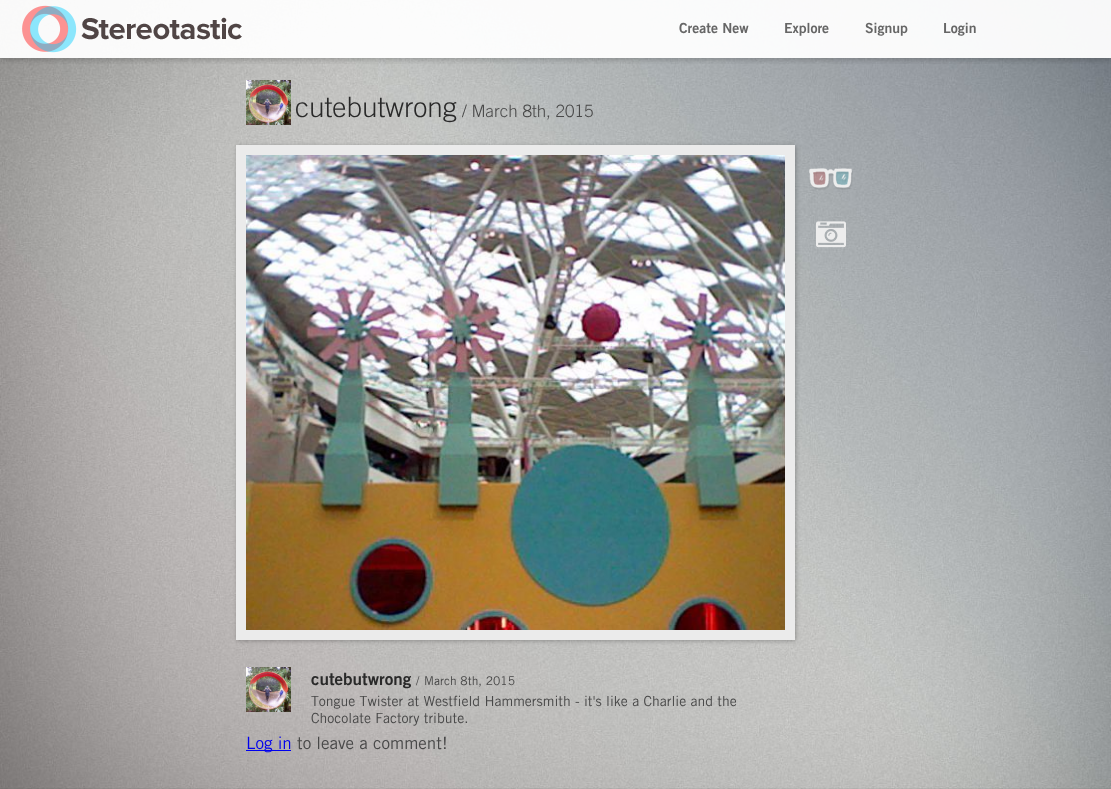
async function draw(canvas) {
  canvas.width = 1111
  canvas.height = 789
  const ctx = canvas.getContext('2d')
  ctx.miterLimit = 4
  ctx.fontKerning = 'normal'
  async function loadImage(src) {
    const img = new Image()
    img.src = src
    await img.decode()
    return img
  }

  ctx.fillStyle = '#fff'
  ctx.fillRect(0, 0, 1111, 789)
  ctx.drawImage(await loadImage('image0.png'), 0, 788, 1111, 1)
  ctx.drawImage(await loadImage('image2.png'), 0, 0, 1111, 789)
  ctx.save()
  ctx.beginPath()
  ctx.rect(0, 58, 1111, 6)
  ctx.clip()
  ctx.fillStyle = '#00000040'
  ctx.filter = 'blur(3.5px)'
  ctx.beginPath()
  ctx.rect(0, 1, 1111, 58)
  ctx.fill()
  ctx.filter = 'none'
  ctx.restore()
  ctx.fillStyle = '#fffffff2'
  ctx.fillRect(0, 0, 1111, 58)
  ctx.drawImage(await loadImage('image1.png'), 22, 5, 220, 48)
  ctx.font = '14px "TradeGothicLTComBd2"'
  ctx.fillStyle = '#666'
  ctx.fillText('Create New', 679, 33)
  ctx.fillText('Explore', 784, 33)
  ctx.fillText('Signup', 865, 33)
  ctx.fillText('Login', 943, 33)
  ctx.drawImage(await loadImage('image3.png'), 246, 80, 45, 45)
  ctx.font = '300 28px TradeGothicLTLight'
  ctx.fillStyle = '#292929'
  ctx.fillText('cutebutwrong', 295, 117)
  ctx.font = '300 17px TradeGothicLTLight'
  ctx.fillStyle = '#484848'
  ctx.fillText('/ March 8th, 2015', 462, 117)
  ctx.fillStyle = '#00000040'
  ctx.filter = 'blur(2px)'
  ctx.beginPath()
  ctx.rect(237, 146, 559, 495)
  ctx.fill()
  ctx.filter = 'none'
  ctx.strokeStyle = '#ebebeb'
  ctx.lineWidth = 10
  ctx.strokeRect(241, 150, 549, 485)
  ctx.drawImage(await loadImage('image4.png'), 246, 155, 539, 475)
  ctx.drawImage(await loadImage('image5.png'), 809, 168, 44, 22)
  ctx.drawImage(await loadImage('image6.png'), 816, 221, 30, 27)
  ctx.drawImage(await loadImage('image3.png'), 246, 667, 45, 45)
  ctx.font = '17px "TradeGothicLTComBd2"'
  ctx.fillStyle = '#292929'
  ctx.fillText('cutebutwrong', 311, 685)
  ctx.font = '12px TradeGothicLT'
  ctx.fillStyle = '#484848'
  ctx.fillText('/', 416, 685)
  ctx.fillText('March 8th, 2015', 424, 685)
  ctx.font = '14px TradeGothicLT'
  ctx.fillText('Tongue Twister at Westfield Hammersmith - it\'s like a Charlie and the', 311, 706)
  ctx.fillText('Chocolate Factory tribute.', 311, 723)
  ctx.fillStyle = '#00e'
  ctx.fillRect(246, 750, 45, 1)
  ctx.font = '17px TradeGothicLT'
  ctx.fillText('Log in', 246, 749)
  ctx.fillStyle = '#484848'
  ctx.fillText('to leave a comment!', 297, 749)
}

draw(document.querySelector('canvas'))
